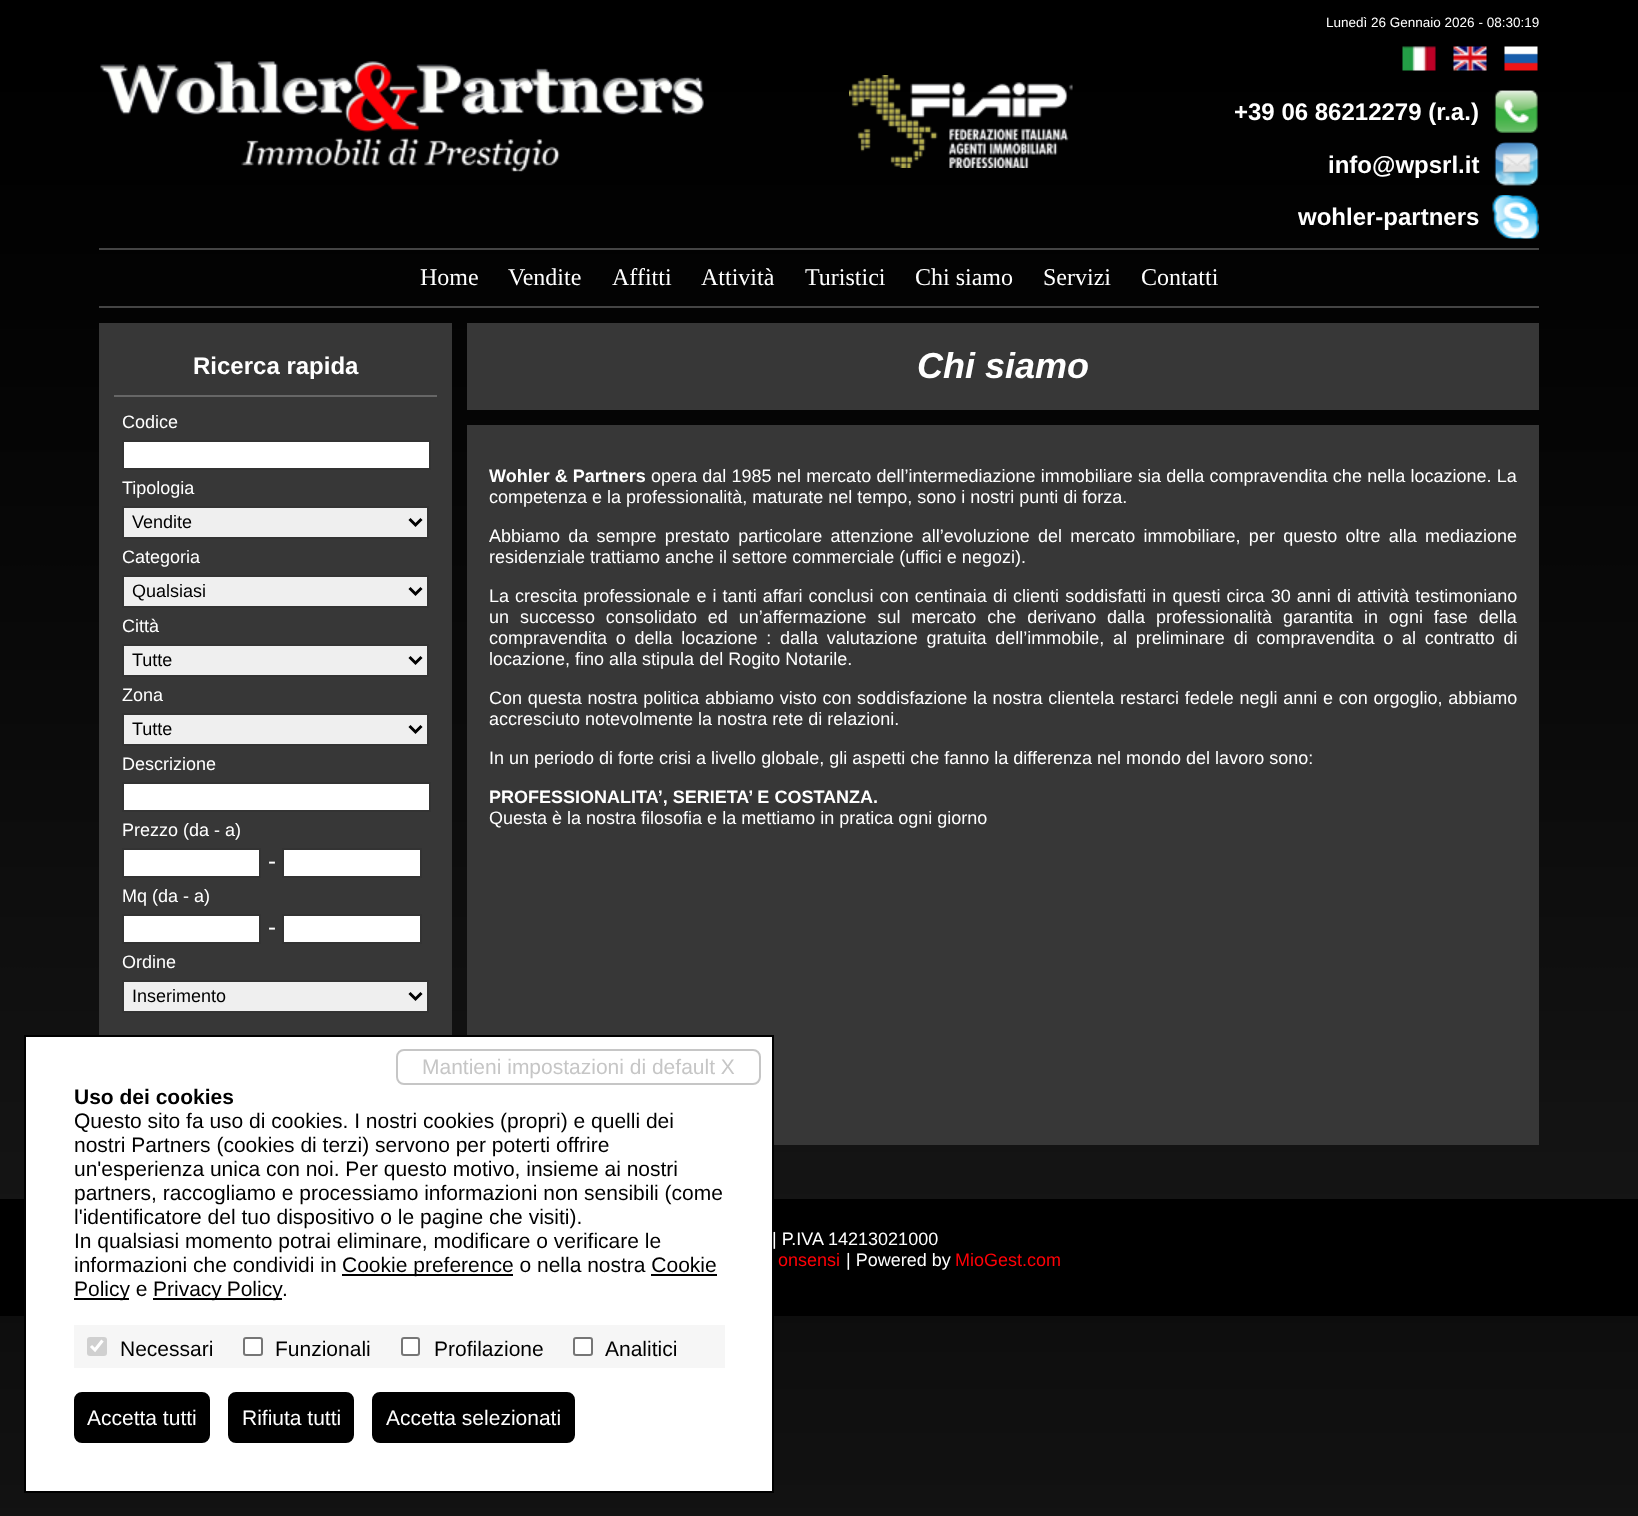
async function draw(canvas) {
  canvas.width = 1638
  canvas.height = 1516
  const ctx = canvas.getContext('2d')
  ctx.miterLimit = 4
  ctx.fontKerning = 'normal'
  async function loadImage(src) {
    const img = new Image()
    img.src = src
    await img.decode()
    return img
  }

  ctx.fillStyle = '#272727'
  ctx.fillRect(0, 0, 1638, 1516)
  ctx.drawImage(await loadImage('image0.png'), 0, 1316, 1638, 200)
  ctx.drawImage(await loadImage('image1.png'), 0, 0, 1638, 1516)
  ctx.font = '13.5px Liberation Sans'
  ctx.fillStyle = '#fff'
  ctx.fillText('Lunedì 26 Gennaio 2026 - 08:30:19', 1326, 27)
  ctx.drawImage(await loadImage('image2.png'), 1402, 46, 34, 25)
  ctx.drawImage(await loadImage('image3.png'), 1453, 46, 34, 25)
  ctx.drawImage(await loadImage('image4.png'), 1504, 46, 34, 25)
  ctx.drawImage(await loadImage('image5.png'), 100, 61, 604, 111)
  ctx.drawImage(await loadImage('image6.png'), 849, 75, 224, 93)
  ctx.drawImage(await loadImage('image7.png'), 1494, 90, 44, 43)
  ctx.font = 'bold 24px Liberation Sans'
  ctx.fillText('+39 06 86212279 (r.a.)', 1234, 120)
  ctx.drawImage(await loadImage('image8.png'), 1494, 142, 45, 44)
  ctx.fillText('info@wpsrl.it', 1328, 173)
  ctx.drawImage(await loadImage('image9.png'), 1492, 195, 47, 44)
  ctx.fillText('wohler-partners', 1298, 225)
  ctx.fillStyle = '#444'
  ctx.fillRect(99, 248, 1440, 2)
  ctx.fillRect(99, 306, 1440, 2)
  ctx.font = '24px Liberation Serif'
  ctx.fillStyle = '#fff'
  ctx.fillText('Home', 420, 285)
  ctx.fillText('Vendite', 508, 285)
  ctx.fillText('Affitti', 612, 285)
  ctx.fillText('Attività', 701, 285)
  ctx.fillText('Turistici', 805, 285)
  ctx.fillText('Chi siamo', 915, 285)
  ctx.fillText('Servizi', 1043, 285)
  ctx.fillText('Contatti', 1141, 285)
  ctx.fillStyle = '#373737'
  ctx.fillRect(99, 323, 353, 712)
  ctx.fillStyle = '#666'
  ctx.fillRect(114, 395, 323, 2)
  ctx.font = 'bold 24px Liberation Sans'
  ctx.fillStyle = '#fff'
  ctx.fillText('Ricerca rapida', 193, 374)
  ctx.font = '18px Liberation Sans'
  ctx.fillText('Codice', 122, 428)
  ctx.beginPath()
  ctx.rect(123, 441, 307, 28)
  ctx.fill()
  ctx.strokeStyle = '#333'
  ctx.lineWidth = 2
  ctx.stroke()
  ctx.fillText('Tipologia', 122, 494)
  ctx.fillStyle = '#efefef'
  ctx.beginPath()
  ctx.rect(123, 507, 305, 31)
  ctx.fill()
  ctx.stroke()
  ctx.beginPath()
  ctx.moveTo(409.5, 519)
  ctx.lineTo(415.5, 525)
  ctx.lineTo(421.5, 519)
  ctx.strokeStyle = '#000'
  ctx.lineWidth = 3
  ctx.stroke()
  ctx.fillStyle = '#000'
  ctx.fillText('Vendite', 132, 528)
  ctx.fillStyle = '#fff'
  ctx.fillText('Categoria', 122, 563)
  ctx.fillStyle = '#efefef'
  ctx.beginPath()
  ctx.rect(123, 576, 305, 31)
  ctx.fill()
  ctx.strokeStyle = '#333'
  ctx.lineWidth = 2
  ctx.stroke()
  ctx.beginPath()
  ctx.moveTo(409.5, 588)
  ctx.lineTo(415.5, 594)
  ctx.lineTo(421.5, 588)
  ctx.strokeStyle = '#000'
  ctx.lineWidth = 3
  ctx.stroke()
  ctx.fillStyle = '#000'
  ctx.fillText('Qualsiasi', 132, 597)
  ctx.fillStyle = '#fff'
  ctx.fillText('Città', 122, 632)
  ctx.fillStyle = '#efefef'
  ctx.beginPath()
  ctx.rect(123, 645, 305, 31)
  ctx.fill()
  ctx.strokeStyle = '#333'
  ctx.lineWidth = 2
  ctx.stroke()
  ctx.beginPath()
  ctx.moveTo(409.5, 657)
  ctx.lineTo(415.5, 663)
  ctx.lineTo(421.5, 657)
  ctx.strokeStyle = '#000'
  ctx.lineWidth = 3
  ctx.stroke()
  ctx.fillStyle = '#000'
  ctx.fillText('Tutte', 132, 666)
  ctx.fillStyle = '#fff'
  ctx.fillText('Zona', 122, 701)
  ctx.fillStyle = '#efefef'
  ctx.beginPath()
  ctx.rect(123, 714, 305, 31)
  ctx.fill()
  ctx.strokeStyle = '#333'
  ctx.lineWidth = 2
  ctx.stroke()
  ctx.beginPath()
  ctx.moveTo(409.5, 726)
  ctx.lineTo(415.5, 732)
  ctx.lineTo(421.5, 726)
  ctx.strokeStyle = '#000'
  ctx.lineWidth = 3
  ctx.stroke()
  ctx.fillStyle = '#000'
  ctx.fillText('Tutte', 132, 735)
  ctx.fillStyle = '#fff'
  ctx.fillText('Descrizione', 122, 770)
  ctx.beginPath()
  ctx.rect(123, 783, 307, 28)
  ctx.fill()
  ctx.strokeStyle = '#333'
  ctx.lineWidth = 2
  ctx.stroke()
  ctx.fillText('Prezzo (da - a)', 122, 836)
  ctx.beginPath()
  ctx.rect(123, 849, 137, 28)
  ctx.fill()
  ctx.stroke()
  ctx.font = '24px Liberation Sans'
  ctx.fillText('-', 268, 869)
  ctx.beginPath()
  ctx.rect(283, 849, 138, 28)
  ctx.fill()
  ctx.stroke()
  ctx.font = '18px Liberation Sans'
  ctx.fillText('Mq (da - a)', 122, 902)
  ctx.beginPath()
  ctx.rect(123, 915, 137, 28)
  ctx.fill()
  ctx.stroke()
  ctx.font = '24px Liberation Sans'
  ctx.fillText('-', 268, 935)
  ctx.beginPath()
  ctx.rect(283, 915, 138, 28)
  ctx.fill()
  ctx.stroke()
  ctx.font = '18px Liberation Sans'
  ctx.fillText('Ordine', 122, 968)
  ctx.fillStyle = '#efefef'
  ctx.beginPath()
  ctx.rect(123, 981, 305, 31)
  ctx.fill()
  ctx.stroke()
  ctx.beginPath()
  ctx.moveTo(409.5, 993)
  ctx.lineTo(415.5, 999)
  ctx.lineTo(421.5, 993)
  ctx.strokeStyle = '#000'
  ctx.lineWidth = 3
  ctx.stroke()
  ctx.fillStyle = '#000'
  ctx.fillText('Inserimento', 132, 1002)
  ctx.fillStyle = '#373737'
  ctx.fillRect(467, 323, 1072, 87)
  ctx.font = 'italic bold 36px Liberation Sans'
  ctx.fillStyle = '#fff'
  ctx.fillText('Chi siamo', 917, 378)
  ctx.fillStyle = '#373737'
  ctx.fillRect(467, 425, 1072, 720)
  ctx.font = 'bold 18px Liberation Sans'
  ctx.fillStyle = '#fff'
  ctx.fillText('Wohler & Partners', 489, 482)
  ctx.wordSpacing = '0.25px'
  ctx.font = '18px Liberation Sans'
  ctx.fillText('opera dal 1985 nel mercato dell’intermediazione immobiliare sia della compravendita che nella locazione. La', 651, 482)
  ctx.wordSpacing = '0px'
  ctx.fillText('competenza e la professionalità, maturate nel tempo, sono i nostri punti di forza.', 489, 503)
  ctx.wordSpacing = '3.25px'
  ctx.fillText('Abbiamo da sempre prestato particolare attenzione all’evoluzione del mercato immobiliare, per questo oltre alla mediazione', 489, 542)
  ctx.wordSpacing = '0px'
  ctx.fillText('residenziale trattiamo anche il settore commerciale (uffici e negozi).', 489, 563)
  ctx.wordSpacing = '1.1px'
  ctx.fillText('La crescita professionale e i tanti affari conclusi con centinaia di clienti soddisfatti in questi circa 30 anni di attività testimoniano', 489, 602)
  ctx.wordSpacing = '5.9px'
  ctx.fillText('un successo consolidato ed un’affermazione sul mercato che derivano dalla professionalità garantita in ogni fase della', 489, 623)
  ctx.wordSpacing = '3.75px'
  ctx.fillText('compravendita o della locazione : dalla valutazione gratuita dell’immobile, al preliminare di compravendita o al contratto di', 489, 644)
  ctx.wordSpacing = '0px'
  ctx.fillText('locazione, fino alla stipula del Rogito Notarile.', 489, 665)
  ctx.wordSpacing = '0.7px'
  ctx.fillText('Con questa nostra politica abbiamo visto con soddisfazione la nostra clientela restarci fedele negli anni e con orgoglio, abbiamo', 489, 704)
  ctx.wordSpacing = '0px'
  ctx.fillText('accresciuto notevolmente la nostra rete di relazioni.', 489, 725)
  ctx.fillText('In un periodo di forte crisi a livello globale, gli aspetti che fanno la differenza nel mondo del lavoro sono:', 489, 764)
  ctx.font = 'bold 18px Liberation Sans'
  ctx.fillText('PROFESSIONALITA’, SERIETA’ E COSTANZA.', 489, 803)
  ctx.font = '18px Liberation Sans'
  ctx.fillText('Questa è la nostra filosofia e la mettiamo in pratica ogni giorno', 489, 824)
  ctx.fillStyle = '#000'
  ctx.fillRect(0, 1199, 1638, 117)
  ctx.fillStyle = '#fff'
  ctx.beginPath()
  ctx.rect(25, 1036, 748, 456)
  ctx.fill()
  ctx.lineWidth = 2
  ctx.stroke()
  ctx.beginPath()
  ctx.roundRect(397, 1050, 363, 34, 7)
  ctx.strokeStyle = '#c6c6c6'
  ctx.stroke()
  ctx.font = '21px Liberation Sans'
  ctx.fillStyle = '#c6c6c6'
  ctx.fillText('Mantieni impostazioni di default X', 422, 1074)
  ctx.font = 'bold 21px Liberation Sans'
  ctx.fillStyle = '#000'
  ctx.fillText('Uso dei cookies', 74, 1104)
  ctx.font = '21px Liberation Sans'
  ctx.fillText('Questo sito fa uso di cookies. I nostri cookies (propri) e quelli dei', 74, 1128)
  ctx.fillText('nostri Partners (cookies di terzi) servono per poterti offrire', 74, 1152)
  ctx.fillText('un\'esperienza unica con noi. Per questo motivo, insieme ai nostri', 74, 1176)
  ctx.fillText('partners, raccogliamo e processiamo informazioni non sensibili (come', 74, 1200)
  ctx.fillText('l\'identificatore del tuo dispositivo o le pagine che visiti).', 74, 1224)
  ctx.fillText('In qualsiasi momento potrai eliminare, modificare o verificare le', 74, 1248)
  ctx.fillText('informazioni che condividi in', 74, 1272)
  ctx.fillRect(342, 1274, 171, 2)
  ctx.fillText('Cookie preference o nella nostra Cookie', 342, 1272)
  ctx.fillRect(74, 1298, 55, 2)
  ctx.fillText('Policy e', 74, 1296)
  ctx.fillRect(651, 1274, 66, 2)
  ctx.fillRect(153, 1298, 129, 2)
  ctx.wordSpacing = '-1px'
  ctx.fillText('Privacy Policy', 153, 1296)
  ctx.wordSpacing = '0px'
  ctx.fillText('.', 282, 1296)
  ctx.fillStyle = '#f6f6f6'
  ctx.fillRect(74, 1325, 651, 43)
  ctx.fillStyle = '#d0d0d0'
  ctx.beginPath()
  ctx.roundRect(87, 1337, 20, 19, 3)
  ctx.fill()
  ctx.beginPath()
  ctx.moveTo(91, 1346)
  ctx.lineTo(95, 1350)
  ctx.lineTo(102.5, 1340.5)
  ctx.strokeStyle = '#fff'
  ctx.lineWidth = 3.1
  ctx.stroke()
  ctx.fillStyle = '#000'
  ctx.fillText('Necessari', 120, 1356)
  ctx.fillStyle = '#fff'
  ctx.beginPath()
  ctx.roundRect(244, 1338, 18, 17, 2)
  ctx.fill()
  ctx.strokeStyle = '#767676'
  ctx.lineWidth = 2
  ctx.stroke()
  ctx.fillStyle = '#000'
  ctx.fillText('Funzionali', 275, 1356)
  ctx.fillStyle = '#fff'
  ctx.beginPath()
  ctx.roundRect(402, 1338, 17, 17, 2)
  ctx.fill()
  ctx.stroke()
  ctx.fillStyle = '#000'
  ctx.fillText('Profilazione', 434, 1356)
  ctx.fillStyle = '#fff'
  ctx.beginPath()
  ctx.roundRect(574, 1338, 18, 17, 2)
  ctx.fill()
  ctx.stroke()
  ctx.fillStyle = '#000'
  ctx.fillText('Analitici', 605, 1356)
  ctx.beginPath()
  ctx.roundRect(75, 1393, 134, 49, 7)
  ctx.fill()
  ctx.strokeStyle = '#000'
  ctx.stroke()
  ctx.fillStyle = '#fff'
  ctx.fillText('Accetta tutti', 87, 1425)
  ctx.fillStyle = '#000'
  ctx.beginPath()
  ctx.roundRect(229, 1393, 124, 49, 7)
  ctx.fill()
  ctx.stroke()
  ctx.fillStyle = '#fff'
  ctx.fillText('Rifiuta tutti', 242, 1425)
  ctx.fillStyle = '#000'
  ctx.beginPath()
  ctx.roundRect(373, 1393, 201, 49, 7)
  ctx.fill()
  ctx.stroke()
  ctx.fillStyle = '#fff'
  ctx.fillText('Accetta selezionati', 386, 1425)
  ctx.font = '18px Liberation Sans'
  ctx.fillText('| P.IVA 14213021000', 772, 1245)
  ctx.fillStyle = '#ff0007'
  ctx.fillText('onsensi', 778, 1266)
  ctx.fillStyle = '#fff'
  ctx.fillText('| Powered by', 846, 1266)
  ctx.fillStyle = '#ff0007'
  ctx.fillText('MioGest.com', 955, 1266)
}

draw(document.querySelector('canvas'))
